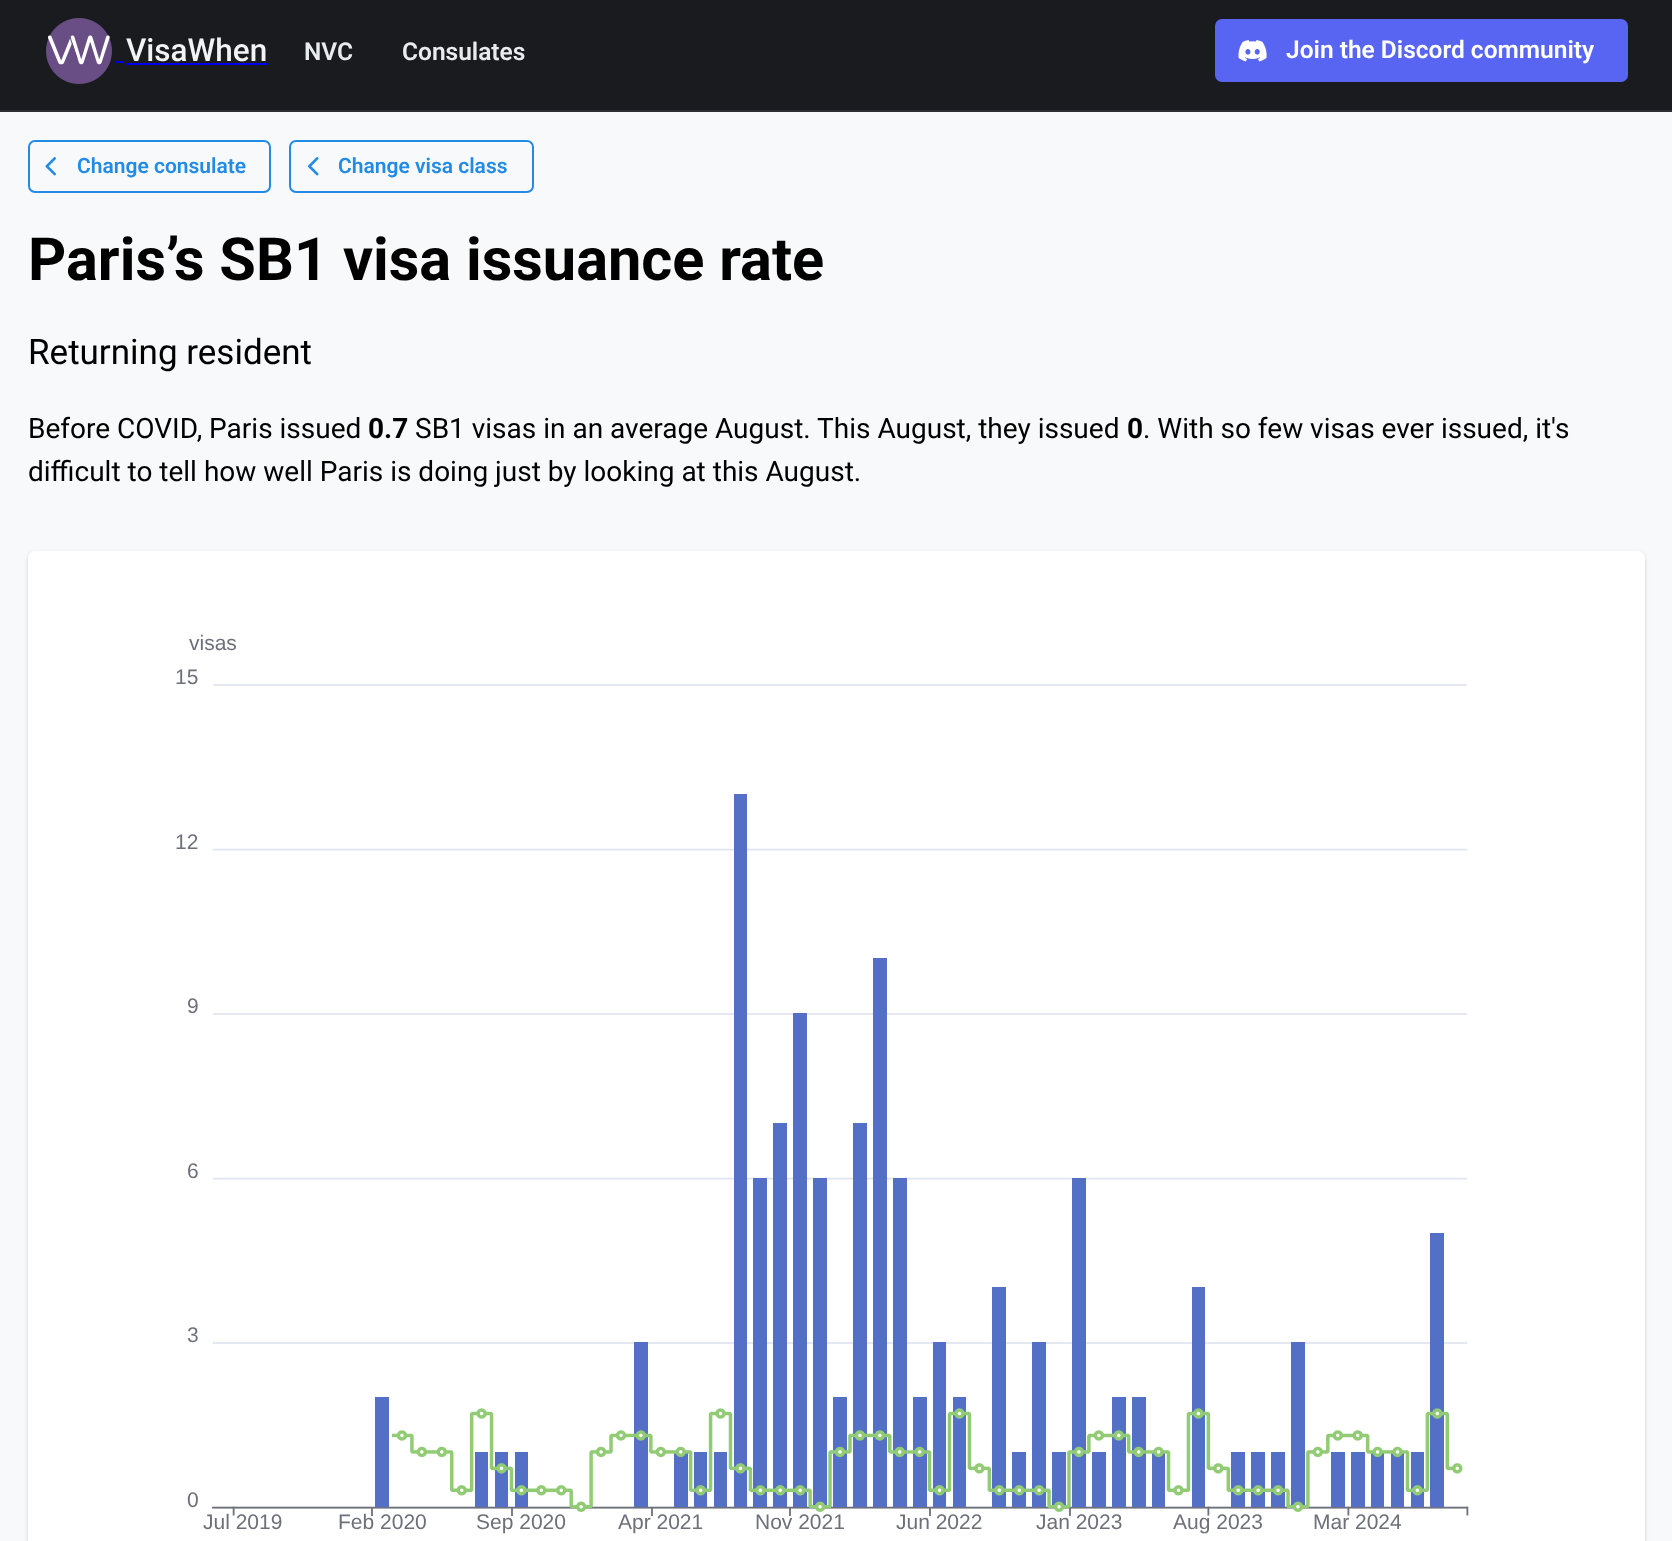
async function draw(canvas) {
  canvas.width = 1672
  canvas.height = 1541
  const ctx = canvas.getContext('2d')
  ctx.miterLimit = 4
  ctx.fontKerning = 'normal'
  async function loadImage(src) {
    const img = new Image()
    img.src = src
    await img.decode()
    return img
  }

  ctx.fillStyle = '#f8f9fa'
  ctx.fillRect(0, 0, 1672, 1541)
  ctx.fillStyle = '#1a1b1e'
  ctx.fillRect(0, 0, 1672, 110)
  ctx.fillStyle = '#2c2e33'
  ctx.fillRect(0, 110, 1672, 2)
  ctx.drawImage(await loadImage('image0.png'), 46, 18, 66, 66)
  ctx.fillStyle = '#00e'
  ctx.fillRect(116, 61, 7, 2)
  ctx.font = '500 31.5px Roboto'
  ctx.fillStyle = '#f1f3f5'
  ctx.fillText('VisaWhen', 126, 61)
  ctx.fillStyle = '#00e'
  ctx.fillRect(126, 63, 142, 2)
  ctx.font = '600 24.5px Roboto'
  ctx.fillStyle = '#e9ecef'
  ctx.fillText('NVC', 304, 60)
  ctx.fillText('Consulates', 402, 60)
  ctx.fillStyle = '#5865f2'
  ctx.beginPath()
  ctx.roundRect(1215, 19, 413, 63, 7)
  ctx.fill()
  ctx.drawImage(await loadImage('image1.png'), 1238, 40, 29, 22)
  ctx.fillStyle = '#fff'
  ctx.fillText('Join the Discord community', 1286, 58)
  ctx.beginPath()
  ctx.roundRect(29, 141, 241, 51, 6)
  ctx.strokeStyle = '#228be6'
  ctx.lineWidth = 2
  ctx.stroke()
  ctx.drawImage(await loadImage('image2.png'), 45, 157, 11, 19)
  ctx.font = '600 21px Roboto'
  ctx.fillStyle = '#228be6'
  ctx.fillText('Change consulate', 77, 173)
  ctx.beginPath()
  ctx.roundRect(290, 141, 243, 51, 6)
  ctx.stroke()
  ctx.drawImage(await loadImage('image3.png'), 308, 157, 11, 19)
  ctx.fillText('Change visa class', 338, 173)
  ctx.font = 'bold 59.5px Roboto'
  ctx.fillStyle = '#000'
  ctx.fillText('Paris’s SB1 visa issuance rate', 28, 280)
  ctx.font = '35px Roboto'
  ctx.fillText('Returning resident', 28, 364)
  ctx.font = '28px Roboto'
  ctx.fillText('Before COVID, Paris issued', 28, 438)
  ctx.font = 'bold 28px Roboto'
  ctx.fillText('0.7', 368, 438)
  ctx.font = '28px Roboto'
  ctx.fillText('SB1 visas in an average August. This August, they issued', 415, 438)
  ctx.font = 'bold 28px Roboto'
  ctx.fillText('0', 1127, 438)
  ctx.font = '28px Roboto'
  ctx.fillText('. With so few visas ever issued, it\'s', 1143, 438)
  ctx.fillText('difficult to tell how well Paris is doing just by looking at this August.', 28, 481)
  ctx.fillStyle = '#0000001a'
  ctx.filter = 'blur(2px)'
  ctx.beginPath()
  ctx.roundRect(28, 553, 1617, 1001, 7)
  ctx.fill()
  ctx.filter = 'none'
  ctx.fillStyle = '#0000000d'
  ctx.filter = 'blur(2.5px)'
  ctx.beginPath()
  ctx.roundRect(28, 553, 1617, 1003, 7)
  ctx.fill()
  ctx.filter = 'none'
  ctx.fillStyle = '#fff'
  ctx.beginPath()
  ctx.roundRect(28, 551, 1617, 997, 7)
  ctx.fill()
  ctx.drawImage(await loadImage('image4.png'), 211, 684, 1258, 832)
  ctx.font = '21px Liberation Sans'
  ctx.fillStyle = '#6e7079'
  ctx.fillText('visas', 189, 650)
  ctx.fillText('15', 175, 684)
  ctx.fillText('12', 175, 849)
  ctx.fillText('9', 187, 1013)
  ctx.fillText('6', 187, 1178)
  ctx.fillText('3', 187, 1342)
  ctx.fillText('0', 187, 1507)
  ctx.fillText('Jul 2019', 203, 1529)
  ctx.fillText('Feb 2020', 338, 1529)
  ctx.fillText('Sep 2020', 476, 1529)
  ctx.fillText('Apr 2021', 618, 1529)
  ctx.fillText('Nov 2021', 755, 1529)
  ctx.fillText('Jun 2022', 896, 1529)
  ctx.fillText('Jan 2023', 1036, 1529)
  ctx.fillText('Aug 2023', 1173, 1529)
  ctx.fillText('Mar 2024', 1313, 1529)
}

draw(document.querySelector('canvas'))
